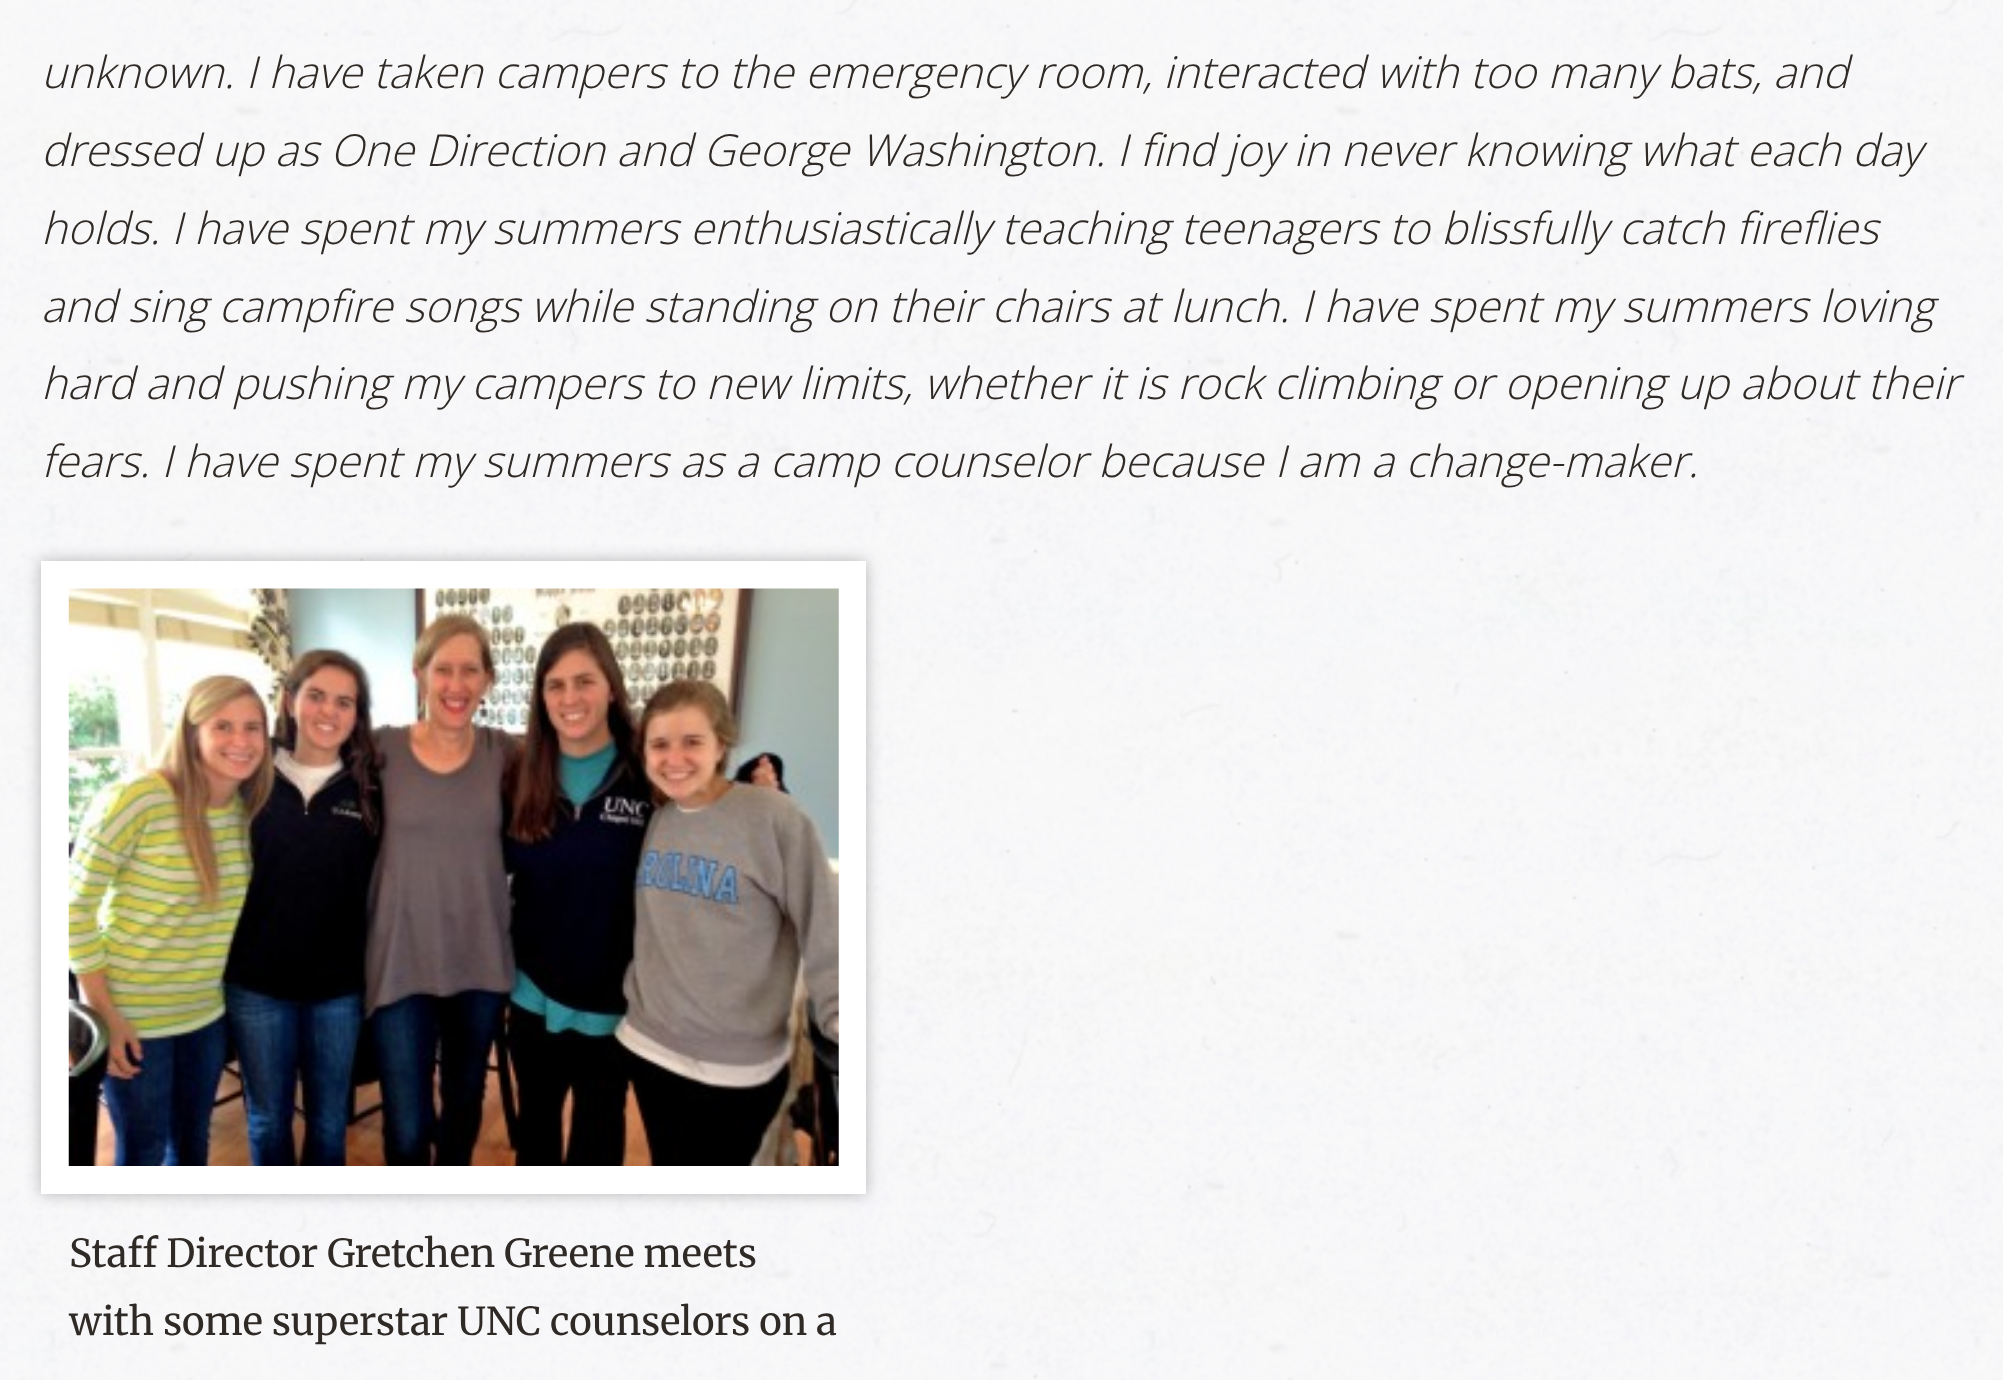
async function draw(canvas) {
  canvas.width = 2003
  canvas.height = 1380
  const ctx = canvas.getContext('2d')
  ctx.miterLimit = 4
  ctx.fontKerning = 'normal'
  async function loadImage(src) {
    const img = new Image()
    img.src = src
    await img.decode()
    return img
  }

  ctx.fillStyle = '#fff'
  ctx.fillRect(0, 0, 2003, 1380)
  ctx.drawImage(await loadImage('image0.png'), 0, 0, 2003, 1380)
  ctx.font = 'italic 300 44px Open Sans'
  ctx.fillStyle = '#2f2a26'
  ctx.fillText('unknown. I have taken campers to the emergency room, interacted with too many bats, and', 41, 88)
  ctx.fillText('dressed up as One Direction and George Washington. I find joy in never knowing what each day', 41, 166)
  ctx.fillText('holds. I have spent my summers enthusiastically teaching teenagers to blissfully catch fireflies', 41, 244)
  ctx.fillText('and sing campfire songs while standing on their chairs at lunch. I have spent my summers loving', 41, 322)
  ctx.fillText('hard and pushing my campers to new limits, whether it is rock climbing or opening up about their', 41, 399)
  ctx.fillText('fears. I have spent my summers as a camp counselor because I am a change-maker.', 41, 477)
  ctx.fillStyle = '#181a1a4d'
  ctx.filter = 'blur(8px)'
  ctx.beginPath()
  ctx.rect(41, 561, 825, 633)
  ctx.fill()
  ctx.filter = 'none'
  ctx.strokeStyle = '#fff'
  ctx.lineWidth = 28
  ctx.strokeRect(55, 575, 797, 605)
  ctx.drawImage(await loadImage('image1.png'), 68, 588, 771, 578)
  ctx.font = '300 38.5px Merriweather'
  ctx.fillStyle = '#2f2a26'
  ctx.fillText('Staff Director Gretchen Greene meets', 69, 1267)
  ctx.fillText('with some superstar UNC counselors on a', 69, 1335)
}

draw(document.querySelector('canvas'))
